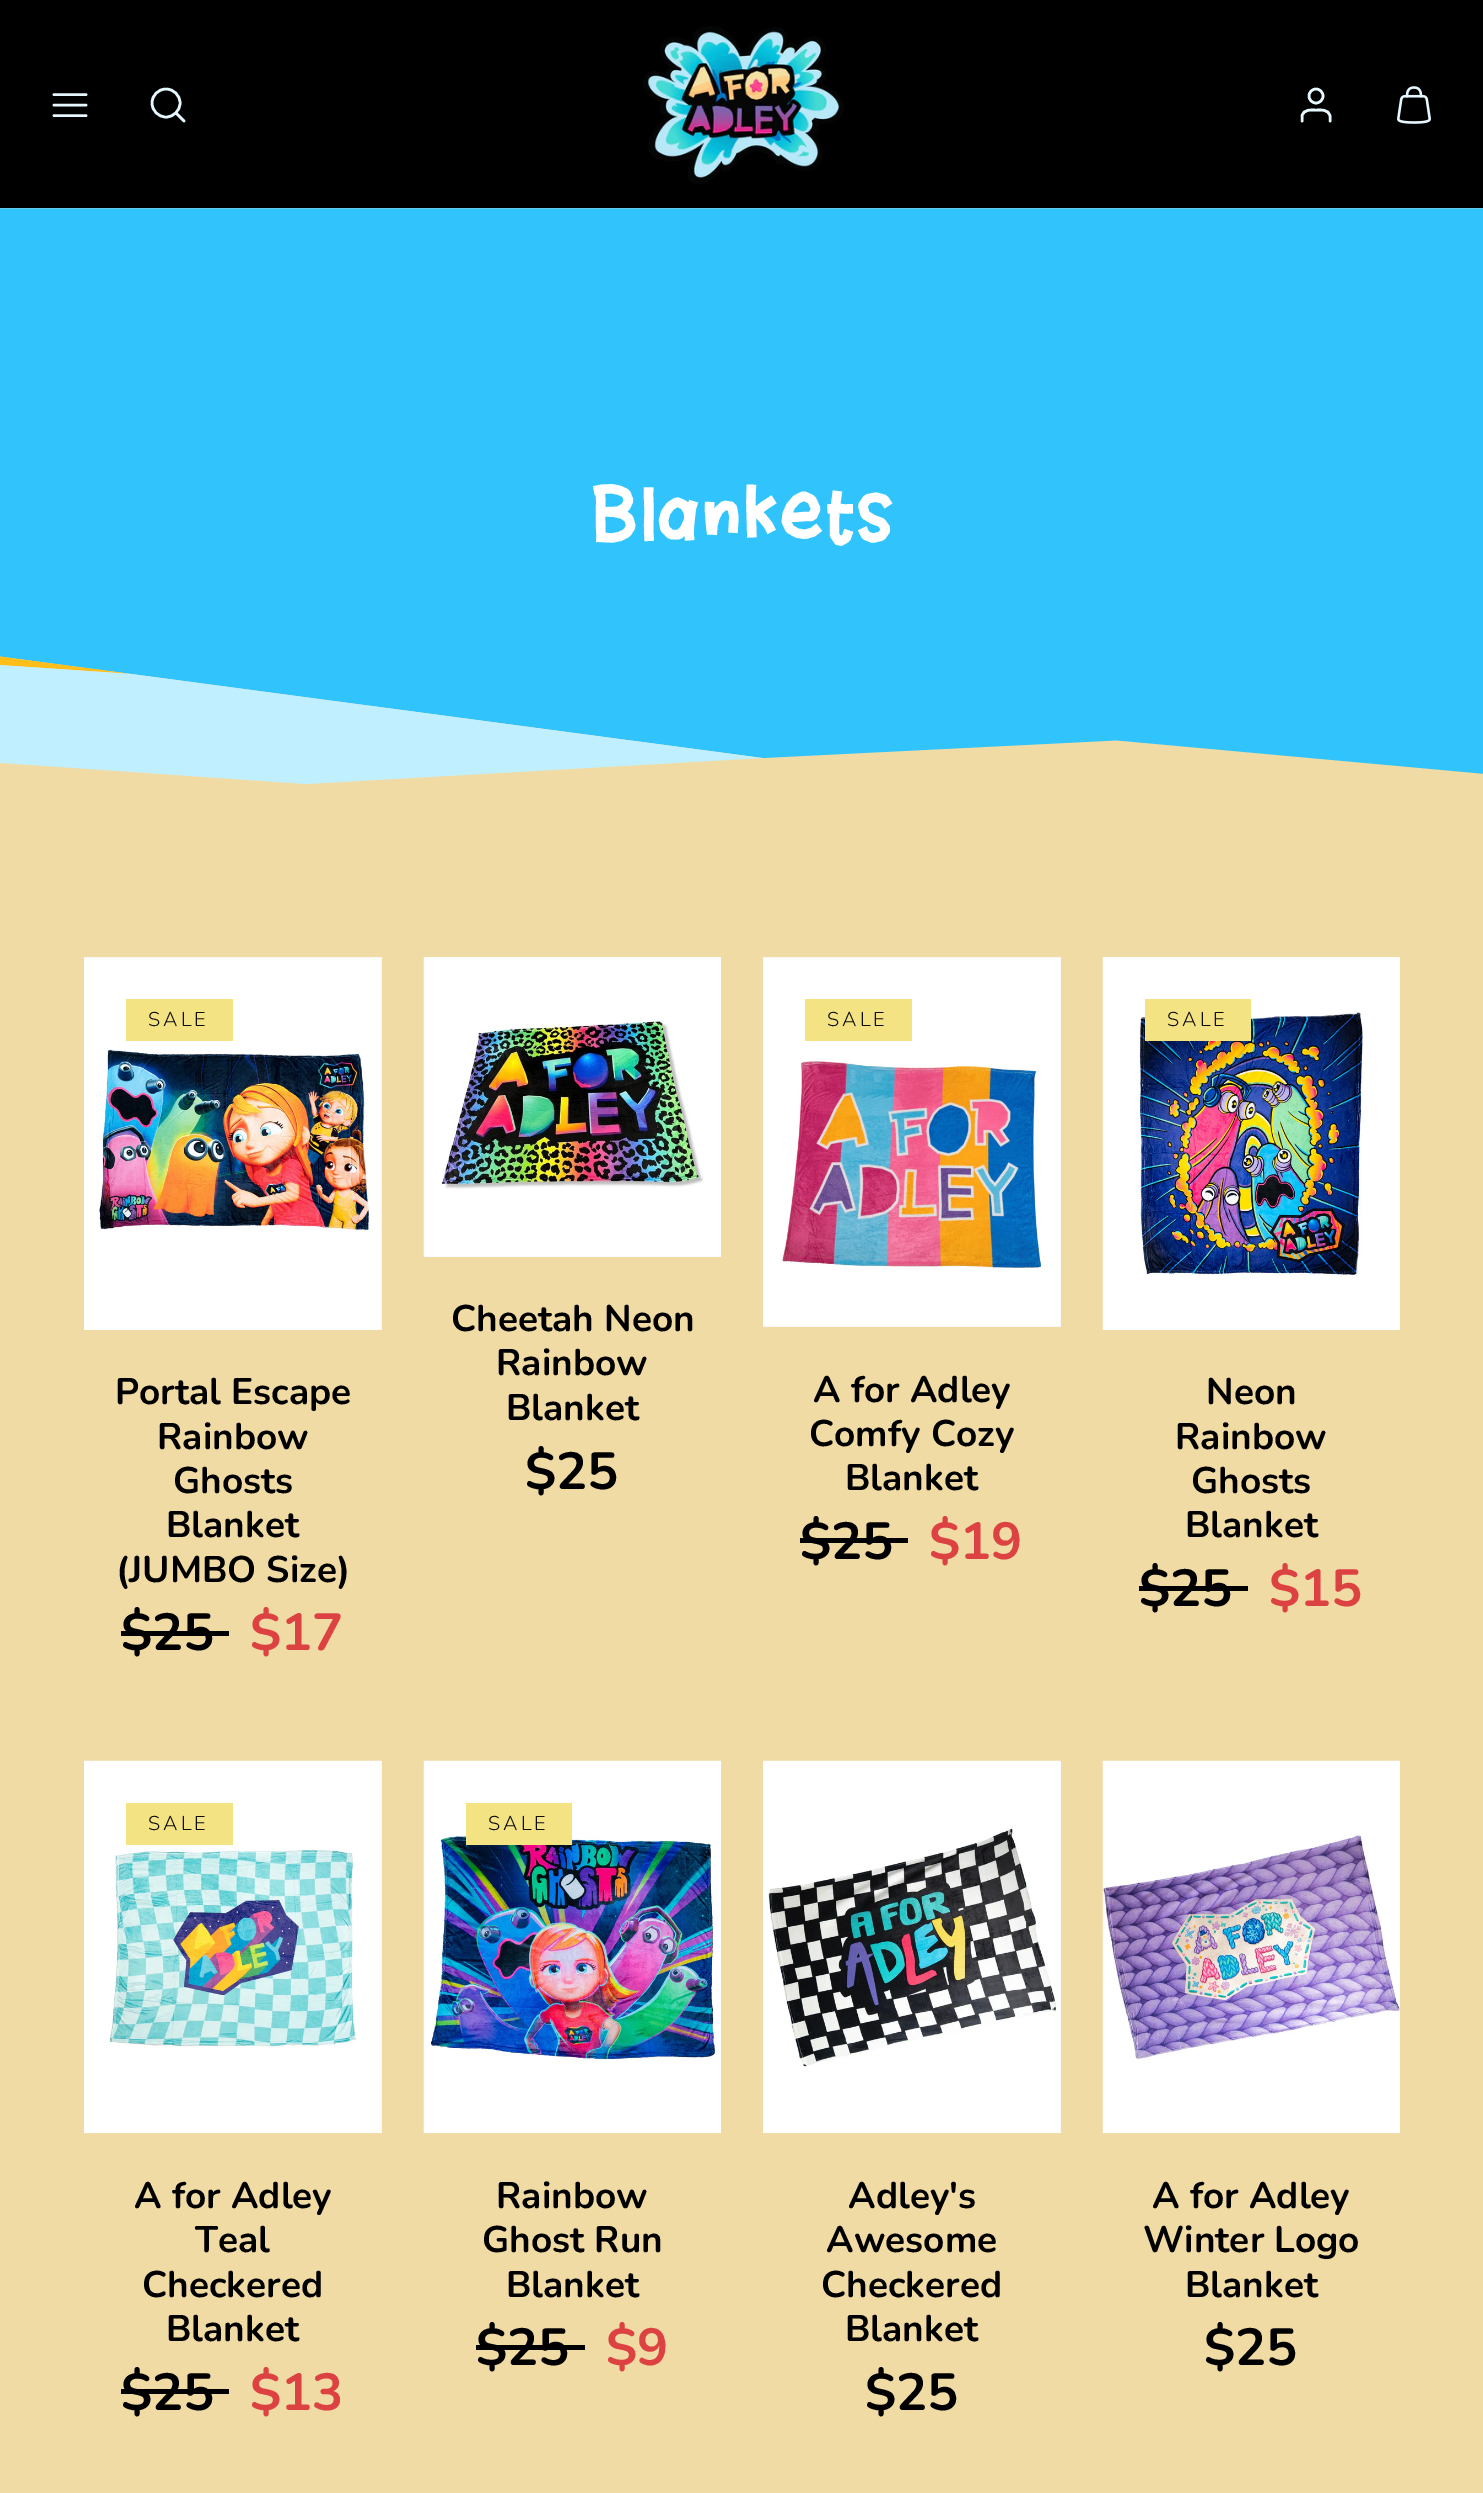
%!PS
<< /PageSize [1483 2493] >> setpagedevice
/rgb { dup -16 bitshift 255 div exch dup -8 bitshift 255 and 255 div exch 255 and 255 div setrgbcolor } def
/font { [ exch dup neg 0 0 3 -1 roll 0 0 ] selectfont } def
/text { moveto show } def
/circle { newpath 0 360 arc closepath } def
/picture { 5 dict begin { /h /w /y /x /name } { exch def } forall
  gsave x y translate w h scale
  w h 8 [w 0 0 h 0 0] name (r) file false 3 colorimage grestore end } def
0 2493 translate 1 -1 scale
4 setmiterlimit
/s1 { /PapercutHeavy-Black 74 font 16#FFFFFF rgb } def
/s2 { /Nunito-Bold 37 font 16#000000 rgb } def
/s3 { /Nunito-Bold 52 font 16#000000 rgb } def
/s4 { /Nunito-Bold 52 font 16#DD4242 rgb } def
16#F1DBA4 rgb
0 0 1483 2493 rectfill
16#000000 rgb
0 0 1483 208 rectfill
16#E6F8FF rgb
2.6 setlinewidth
1 setlinecap
1 setlinejoin
54 105 moveto 86 105 lineto 54 94.5 moveto 86 94.5 lineto 54 115.5 moveto 86 115.5 lineto stroke
0 setlinecap
0 setlinejoin
166 103 14 circle stroke
1 setlinecap
1 setlinejoin
184 121 moveto 176 113 lineto stroke
(pic1.raw) 643 26 201 158 picture
1330 121 moveto 1330 116 lineto 1328.5 109 1321 110 1316 110 curveto 1311 110 1303.5 109 1302 116 curveto 1302 121 lineto stroke
0 setlinecap
0 setlinejoin
1316 96 7 circle stroke
(pic2.raw) 1397 86 34 38 picture
(pic3.raw) 0 208 1483 576 picture
s1
(Blankets) 589 540 text
16#F8F8F8 rgb
84 957 298 373 rectfill
(pic4.raw) 84 958 297 372 picture
16#F4E383 rgb
126 999 107 42 rectfill
/Nunito-Light 20 font
16#0D0D0D rgb
148 1026 moveto 3 0 (SALE) ashow
s2
(Portal Escape) 115 1404 text
(Rainbow) 157 1449 text
(Ghosts) 173 1493 text
(Blanket) 166 1537 text
(\(JUMBO Size\)) 116 1582 text
s3
($25) 121 1650 text
121 1631 108 5 rectfill
s4
($17) 250 1650 text
16#F8F8F8 rgb
424 957 297 300 rectfill
(pic5.raw) 423 957 298 300 picture
s2
(Cheetah Neon) 451 1331 text
(Rainbow) 496 1375 text
(Blanket) 506 1420 text
s3
($25) 525 1489 text
16#F8F8F8 rgb
763 957 298 370 rectfill
(pic6.raw) 763 958 297 368 picture
16#F4E383 rgb
805 999 107 42 rectfill
/Nunito-Light 20 font
16#0D0D0D rgb
827 1026 moveto 3 0 (SALE) ashow
s2
(A for Adley) 813 1402 text
(Comfy Cozy) 809 1446 text
(Blanket) 845 1490 text
s3
($25) 800 1559 text
800 1538 108 5 rectfill
s4
($19) 929 1559 text
16#F8F8F8 rgb
1103 957 297 1 rectfill
(pic7.raw) 1102 957 298 373 picture
16#F4E383 rgb
1145 999 106 42 rectfill
/Nunito-Light 20 font
16#0D0D0D rgb
1167 1026 moveto 3 0 (SALE) ashow
s2
(Neon) 1206 1404 text
(Rainbow) 1175 1449 text
(Ghosts) 1191 1493 text
(Blanket) 1185 1537 text
s3
($25) 1139 1606 text
1139 1586 109 5 rectfill
s4
($15) 1269 1606 text
16#F8F8F8 rgb
381 1761 1 372 rectfill
(pic8.raw) 84 1760 298 374 picture
16#F4E383 rgb
126 1803 107 42 rectfill
/Nunito-Light 20 font
16#0D0D0D rgb
148 1830 moveto 3 0 (SALE) ashow
s2
(A for Adley) 134 2208 text
(Teal) 195 2252 text
(Checkered) 142 2297 text
(Blanket) 166 2341 text
s3
($25) 121 2410 text
121 2389 108 5 rectfill
s4
($13) 250 2410 text
(pic9.raw) 423 1760 298 374 picture
16#F4E383 rgb
466 1803 106 42 rectfill
/Nunito-Light 20 font
16#0D0D0D rgb
488 1830 moveto 3 0 (SALE) ashow
s2
(Rainbow) 496 2208 text
(Ghost Run) 482 2252 text
(Blanket) 506 2297 text
s3
($25) 476 2365 text
476 2345 109 5 rectfill
s4
($9) 606 2365 text
16#F8F8F8 rgb
1060 1761 1 372 rectfill
(pic10.raw) 763 1760 298 374 picture
s2
(Adley's) 848 2208 text
(Awesome) 826 2252 text
(Checkered) 821 2297 text
(Blanket) 845 2341 text
s3
($25) 865 2410 text
(pic11.raw) 1102 1760 298 374 picture
s2
(A for Adley) 1152 2208 text
(Winter Logo) 1143 2252 text
(Blanket) 1185 2297 text
s3
($25) 1204 2365 text
showpage
